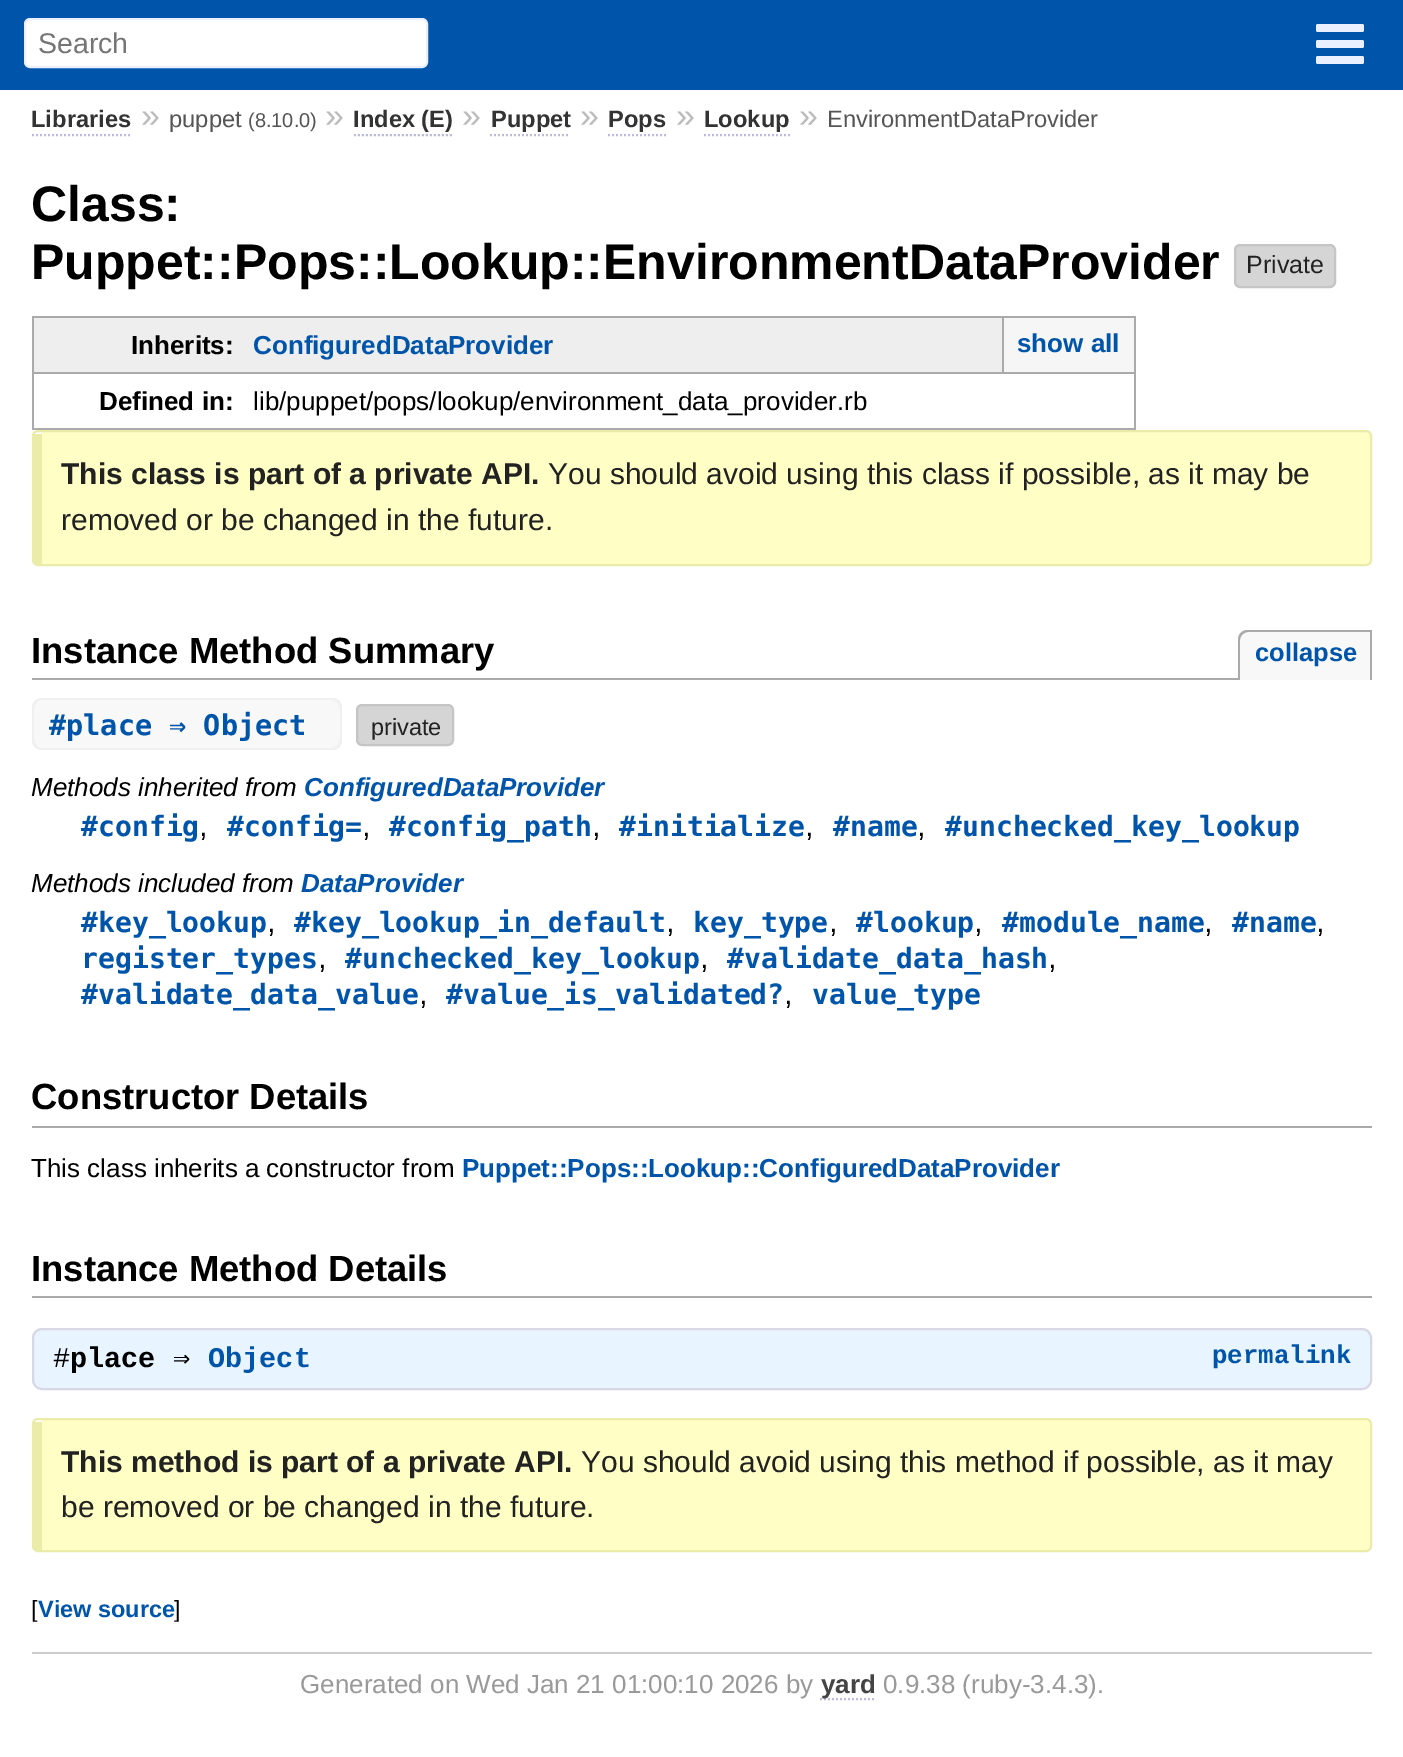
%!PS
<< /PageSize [1403 1757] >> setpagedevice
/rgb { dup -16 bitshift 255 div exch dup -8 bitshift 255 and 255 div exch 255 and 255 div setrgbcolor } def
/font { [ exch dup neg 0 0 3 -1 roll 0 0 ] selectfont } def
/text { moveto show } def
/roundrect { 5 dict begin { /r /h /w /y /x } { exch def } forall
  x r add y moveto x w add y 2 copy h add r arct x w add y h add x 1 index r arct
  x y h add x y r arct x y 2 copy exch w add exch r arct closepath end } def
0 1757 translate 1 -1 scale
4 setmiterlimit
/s1 { /LiberationSans-Regular 28.5 font 16#757575 rgb } def
/s2 { /LiberationSans-Bold 23.7 font 16#333333 rgb } def
/s3 { /LiberationSans-Regular 34 font 16#BBBBBB rgb } def
/s4 { /LiberationSans-Regular 23.7 font 16#555555 rgb } def
/s5 { /LiberationSans-Regular 20 font 16#555555 rgb } def
/s6 { /LiberationSans-Bold 50 font 16#000000 rgb } def
/s7 { /LiberationSans-Regular 25 font 16#222222 rgb } def
/s8 { /LiberationSans-Bold 26 font 16#000000 rgb } def
/s9 { /LiberationSans-Bold 26 font 16#0055AA rgb } def
/s10 { /LiberationSans-Regular 26 font 16#000000 rgb } def
/s11 { /LiberationSans-Bold 30 font 16#222222 rgb } def
/s12 { /LiberationSans-Regular 30 font 16#222222 rgb } def
/s13 { /LiberationSans-Bold 36.4 font 16#000000 rgb } def
/s14 { /LiberationSans-Bold 25.5 font 16#0055AA rgb } def
/s15 { /DejaVuSansMono-Bold 28.5 font 16#0055AA rgb } def
/s16 { /LiberationSans-Regular 23.5 font 16#222222 rgb } def
/s17 { /LiberationSans-Italic 26 font 16#000000 rgb } def
/s18 { /LiberationSans-BoldItalic 26 font 16#0055AA rgb } def
/s19 { /DejaVuSansMono-Bold 28.1 font 16#0055AA rgb } def
/s20 { /LiberationSans-Regular 31 font 16#000000 rgb } def
/s21 { /LiberationMono-Regular 28.5 font 16#000000 rgb } def
/s22 { /LiberationMono-Bold 28.5 font 16#000000 rgb } def
/s23 { /DejaVuSansMono-Regular 28.5 font 16#000000 rgb } def
/s24 { /LiberationMono-Bold 28.5 font 16#0055AA rgb } def
/s25 { /LiberationMono-Bold 25.75 font 16#0055AA rgb } def
/s26 { /LiberationSans-Regular 23.5 font 16#000000 rgb } def
/s27 { /LiberationSans-Bold 23.5 font 16#0055AA rgb } def
/s28 { /LiberationSans-Regular 26 font 16#999999 rgb } def
/s29 { /LiberationSans-Bold 26 font 16#444444 rgb } def
16#FFFFFF rgb
0 0 1403 1757 rectfill
16#0055AA rgb
0 0 1403 90 rectfill
16#FFFFFF rgb
25 19 402 48 5 roundrect gsave fill grestore
16#EAF0FF rgb
2 setlinewidth
stroke
s1
(Search) 38 53 text
16#EAF0FF rgb
1316 24 48 8 2 roundrect fill
1316 40 48 8 2 roundrect fill
1316 56 48 8 2 roundrect fill
s2
(Libraries) 31 127 text
16#BBBBDD rgb
[2 2] 0 setdash
32 135 moveto 132 135 lineto stroke
s3
(») 141 127 text
s4
(puppet) 169 127 text
s5
(\(8.10.0\)) 248 127 text
s3
(») 325 127 text
s2
(Index \(E\)) 353 127 text
16#BBBBDD rgb
354 135 moveto 452 135 lineto stroke
s3
(») 462 127 text
s2
(Puppet) 491 127 text
16#BBBBDD rgb
490 135 moveto 570 135 lineto stroke
s3
(») 580 127 text
s2
(Pops) 608 127 text
16#BBBBDD rgb
608 135 moveto 666 135 lineto stroke
s3
(») 676 127 text
s2
(Lookup) 704 127 text
16#BBBBDD rgb
704 135 moveto 790 135 lineto stroke
s3
(») 799 127 text
s4
(EnvironmentDataProvider) 827 127 text
s6
(Class:) 31 221 text
(Puppet::Pops::Lookup::EnvironmentDataProvider) 31 279 text
16#D5D5D5 rgb
1235 245 100 42 5 roundrect gsave fill grestore
16#C5C5C5 rgb
[] 0 setdash
stroke
s7
(Private) 1246 273 text
16#EEEEEE rgb
34 318 968 54 rectfill
16#AAAAAA rgb
32 316 1104 2 rectfill
32 316 2 56 rectfill
s8
(Inherits:) 131 354 text
16#AAAAAA rgb
32 372 1104 2 rectfill
1134 316 2 114 rectfill
s9
(ConfiguredDataProvider) 253 354 text
16#F6F6F6 rgb
1004 318 130 54 rectfill
16#AAAAAA rgb
1002 318 2 54 rectfill
s9
(show all) 1017 352 text
16#AAAAAA rgb
32 428 222 2 rectfill
32 372 2 58 rectfill
s8
(Defined in:) 99 410 text
16#AAAAAA rgb
254 428 882 2 rectfill
s10
(lib/puppet/pops/lookup/environment_data_provider.rb) 253 410 text
16#FFFFC5 rgb
42 432 moveto 1366 432 lineto 1368 432 1370 434 1370 436 curveto 1370 560 lineto 1370 562 1368 564 1366 564 curveto 42 564 lineto closepath fill
16#ECECAA rgb
33 431 1338 134 5 roundrect stroke
34 434 8 130 rectfill
s11
(This class is part of a private API.) 61 484 text
s12
(You should avoid using this class if possible, as it may be) 548 484 text
(removed or be changed in the future.) 61 530 text
16#AAAAAA rgb
32 678 1206 2 rectfill
s13
(Instance Method Summary) 31 663 text
16#F8F8F8 rgb
1248 630 moveto 1372 630 lineto 1372 680 lineto 1238 680 lineto 1238 640 lineto 1238 634.5 1242.5 630 1248 630 curveto closepath fill
16#AAAAAA rgb
1248 630 moveto 1372 630 lineto 1372 680 lineto 1238 680 lineto 1238 640 lineto 1238 634 1242 630 1248 630 curveto closepath 1248 632 moveto 1370 632 lineto 1370 680 lineto 1240 680 lineto 1240 640 lineto 1240 636 1244 632 1248 632 curveto closepath eofill
s14
(collapse) 1255 661 text
16#F8F8F8 rgb
42 698 moveto 66 698 lineto 66 750 lineto 42 750 lineto 36.5 750 32 745.5 32 740 curveto 32 708 lineto 32 702.5 36.5 698 42 698 curveto closepath fill
16#F0F0F0 rgb
42 698 moveto 66 698 lineto 66 750 lineto 42 750 lineto 36 750 32 746 32 740 curveto 32 708 lineto 32 702 36 698 42 698 curveto closepath 42 700 moveto 66 700 lineto 66 748 lineto 42 748 lineto 38 748 34 744 34 740 curveto 34 708 lineto 34 704 38 700 42 700 curveto closepath eofill
16#F8F8F8 rgb
66 700 86 48 rectfill
152 698 moveto 332 698 lineto 337.5 698 342 702.5 342 708 curveto 342 740 lineto 342 745.5 337.5 750 332 750 curveto 152 750 lineto closepath fill
16#F0F0F0 rgb
152 698 moveto 332 698 lineto 338 698 342 702 342 708 curveto 342 740 lineto 342 746 338 750 332 750 curveto 152 750 lineto closepath 152 700 moveto 332 700 lineto 336 700 340 704 340 708 curveto 340 740 lineto 340 744 336 748 332 748 curveto 152 748 lineto closepath eofill
s15
(#place ⇒ Object) 49 735 text
16#F0F0F0 rgb
66 698 86 2 rectfill
66 748 86 2 rectfill
16#D5D5D5 rgb
357 705 96 40 5 roundrect gsave fill grestore
16#C5C5C5 rgb
stroke
s16
(private) 371 735 text
s17
(Methods inherited from) 31 796 text
s18
(ConfiguredDataProvider) 304 796 text
s19
(#config) 81 836 text
s20
(,) 199 836 text
s19
(#config=) 227 836 text
s20
(,) 362 836 text
s19
(#config_path) 389 836 text
s20
(,) 592 836 text
s19
(#initialize) 619 836 text
s20
(,) 805 836 text
s19
(#name) 833 836 text
s20
(,) 917 836 text
s19
(#unchecked_key_lookup) 945 836 text
s17
(Methods included from) 31 892 text
s18
(DataProvider) 301 892 text
s19
(#key_lookup) 81 932 text
s20
(,) 267 932 text
s19
(#key_lookup_in_default) 294 932 text
s20
(,) 666 932 text
s19
(key_type) 693 932 text
s20
(,) 829 932 text
s19
(#lookup) 856 932 text
s20
(,) 974 932 text
s19
(#module_name) 1002 932 text
s20
(,) 1204 932 text
s19
(#name) 1232 932 text
s20
(,) 1316 932 text
s19
(register_types) 81 968 text
s20
(,) 318 968 text
s19
(#unchecked_key_lookup) 345 968 text
s20
(,) 700 968 text
s19
(#validate_data_hash) 727 968 text
s20
(,) 1048 968 text
s19
(#validate_data_value) 81 1004 text
s20
(,) 419 1004 text
s19
(#value_is_validated?) 446 1004 text
s20
(,) 784 1004 text
s19
(value_type) 812 1004 text
16#AAAAAA rgb
32 1126 1340 2 rectfill
s13
(Constructor Details) 31 1109 text
s10
(This class inherits a constructor from) 31 1177 text
s9
(Puppet::Pops::Lookup::ConfiguredDataProvider) 462 1177 text
16#AAAAAA rgb
32 1296 1340 2 rectfill
s13
(Instance Method Details) 31 1281 text
16#E8F4FF rgb
33 1329 1338 60 9 roundrect gsave fill grestore
16#D8D8E5 rgb
stroke
s21
(#) 53 1367 text
s22
(place) 70 1367 text
s23
(⇒) 173 1367 text
s24
(Object) 208 1367 text
s25
(permalink) 1212 1363 text
16#FFFFC5 rgb
42 1420 moveto 1366 1420 lineto 1368 1420 1370 1422 1370 1424 curveto 1370 1546 lineto 1370 1548 1368 1550 1366 1550 curveto 42 1550 lineto closepath fill
16#ECECAA rgb
33 1419 1338 132 5 roundrect stroke
34 1422 8 128 rectfill
s11
(This method is part of a private API.) 61 1472 text
s12
(You should avoid using this method if possible, as it may) 581 1472 text
(be removed or be changed in the future.) 61 1517 text
s26
([) 31 1617 text
s27
(View source) 38 1617 text
s26
(]) 174 1617 text
16#CCCCCC rgb
32 1652 1340 2 rectfill
s28
(Generated on Wed Jan 21 01:00:10 2026 by) 300 1693 text
16#BBBBDD rgb
[2 2] 0 setdash
820 1699 moveto 876 1699 lineto stroke
s29
(yard) 821 1693 text
s28
(0.9.38 \(ruby-3.4.3\).) 883 1693 text
showpage
